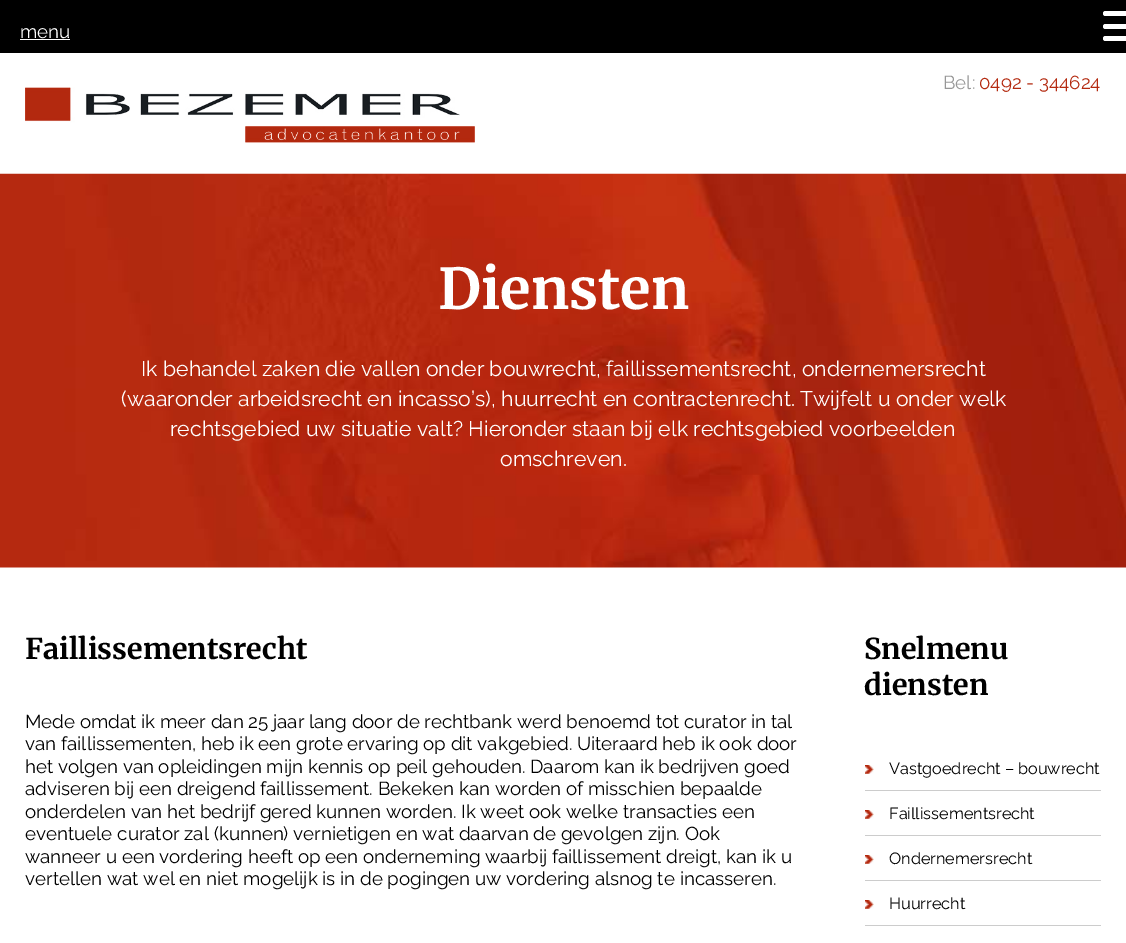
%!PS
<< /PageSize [1126 943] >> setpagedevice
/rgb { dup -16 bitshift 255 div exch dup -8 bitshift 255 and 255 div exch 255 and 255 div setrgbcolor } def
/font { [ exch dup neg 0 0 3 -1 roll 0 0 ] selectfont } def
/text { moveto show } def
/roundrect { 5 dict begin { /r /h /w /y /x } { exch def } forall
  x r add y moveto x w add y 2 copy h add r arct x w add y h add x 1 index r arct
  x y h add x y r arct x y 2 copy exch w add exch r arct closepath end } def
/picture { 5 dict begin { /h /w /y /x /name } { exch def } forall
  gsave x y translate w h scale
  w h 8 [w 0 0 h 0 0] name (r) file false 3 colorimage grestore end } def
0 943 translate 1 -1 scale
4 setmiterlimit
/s1 { /Raleway-Regular 18.75 font 16#FFFFFF rgb } def
/s2 { /Raleway-Regular 18.75 font 16#979797 rgb } def
/s3 { /Raleway-Regular 18.75 font 16#B42A10 rgb } def
/s4 { /Merriweather-Bold 56.25 font 16#FFFFFF rgb } def
/s5 { /Raleway-Regular 21.25 font 16#FFFFFF rgb } def
/s6 { /Merriweather-Bold 28.75 font 16#000000 rgb } def
/s7 { /Raleway-Regular 18.75 font 16#000000 rgb } def
/s8 { /Raleway-Regular 16.25 font 16#000000 rgb } def
16#FFFFFF rgb
0 0 1126 943 rectfill
16#000000 rgb
0 0 1126 53 rectfill
s1
(menu) 20 38 text
20 39 50 1 rectfill
1103 11 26 5 2.5 roundrect fill
1103 24 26 5 2.5 roundrect fill
1103 36 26 5 2.5 roundrect fill
s2
(Bel:) 943 89 text
s3
(0492 - 344624) 979 89 text
(pic1.raw) 25 87 450 56 picture
(pic2.raw) 0 173 1126 395 picture
s4
(Diensten) 438 309 text
s5
(Ik behandel zaken die vallen onder bouwrecht, faillissementsrecht, ondernemersrecht) 141 376 text
(\(waaronder arbeidsrecht en incasso’s\), huurrecht en contractenrecht. Twijfelt u onder welk) 121 406 text
(rechtsgebied uw situatie valt? Hieronder staan bij elk rechtsgebied voorbeelden) 170 436 text
(omschreven.) 500 466 text
s6
(Faillissementsrecht) 25 659 text
s7
(Mede omdat ik meer dan 25 jaar lang door de rechtbank werd benoemd tot curator in tal) 25 728 text
(van faillissementen, heb ik een grote ervaring op dit vakgebied. Uiteraard heb ik ook door) 25 750 text
(het volgen van opleidingen mijn kennis op peil gehouden. Daarom kan ik bedrijven goed) 25 773 text
(adviseren bij een dreigend faillissement. Bekeken kan worden of misschien bepaalde) 25 795 text
(onderdelen van het bedrijf gered kunnen worden. Ik weet ook welke transacties een) 25 818 text
(eventuele curator zal \(kunnen\) vernietigen en wat daarvan de gevolgen zijn. Ook) 25 840 text
(wanneer u een vordering heeft op een onderneming waarbij faillissement dreigt, kan ik u) 25 863 text
(vertellen wat wel en niet mogelijk is in de pogingen uw vordering alsnog te incasseren.) 25 885 text
s6
(Snelmenu) 864 659 text
(diensten) 864 695 text
(pic3.raw) 865 765 9 9 picture
16#CCCCCC rgb
865 790 236 1 rectfill
s8
(Vastgoedrecht – bouwrecht) 889 774 text
(pic3.raw) 865 810 9 9 picture
16#CCCCCC rgb
865 835 236 1 rectfill
s8
(Faillissementsrecht) 889 819 text
(pic3.raw) 865 855 9 9 picture
16#CCCCCC rgb
865 880 236 1 rectfill
s8
(Ondernemersrecht) 889 864 text
(pic3.raw) 865 900 9 9 picture
16#CCCCCC rgb
865 925 236 1 rectfill
s8
(Huurrecht) 889 909 text
showpage
